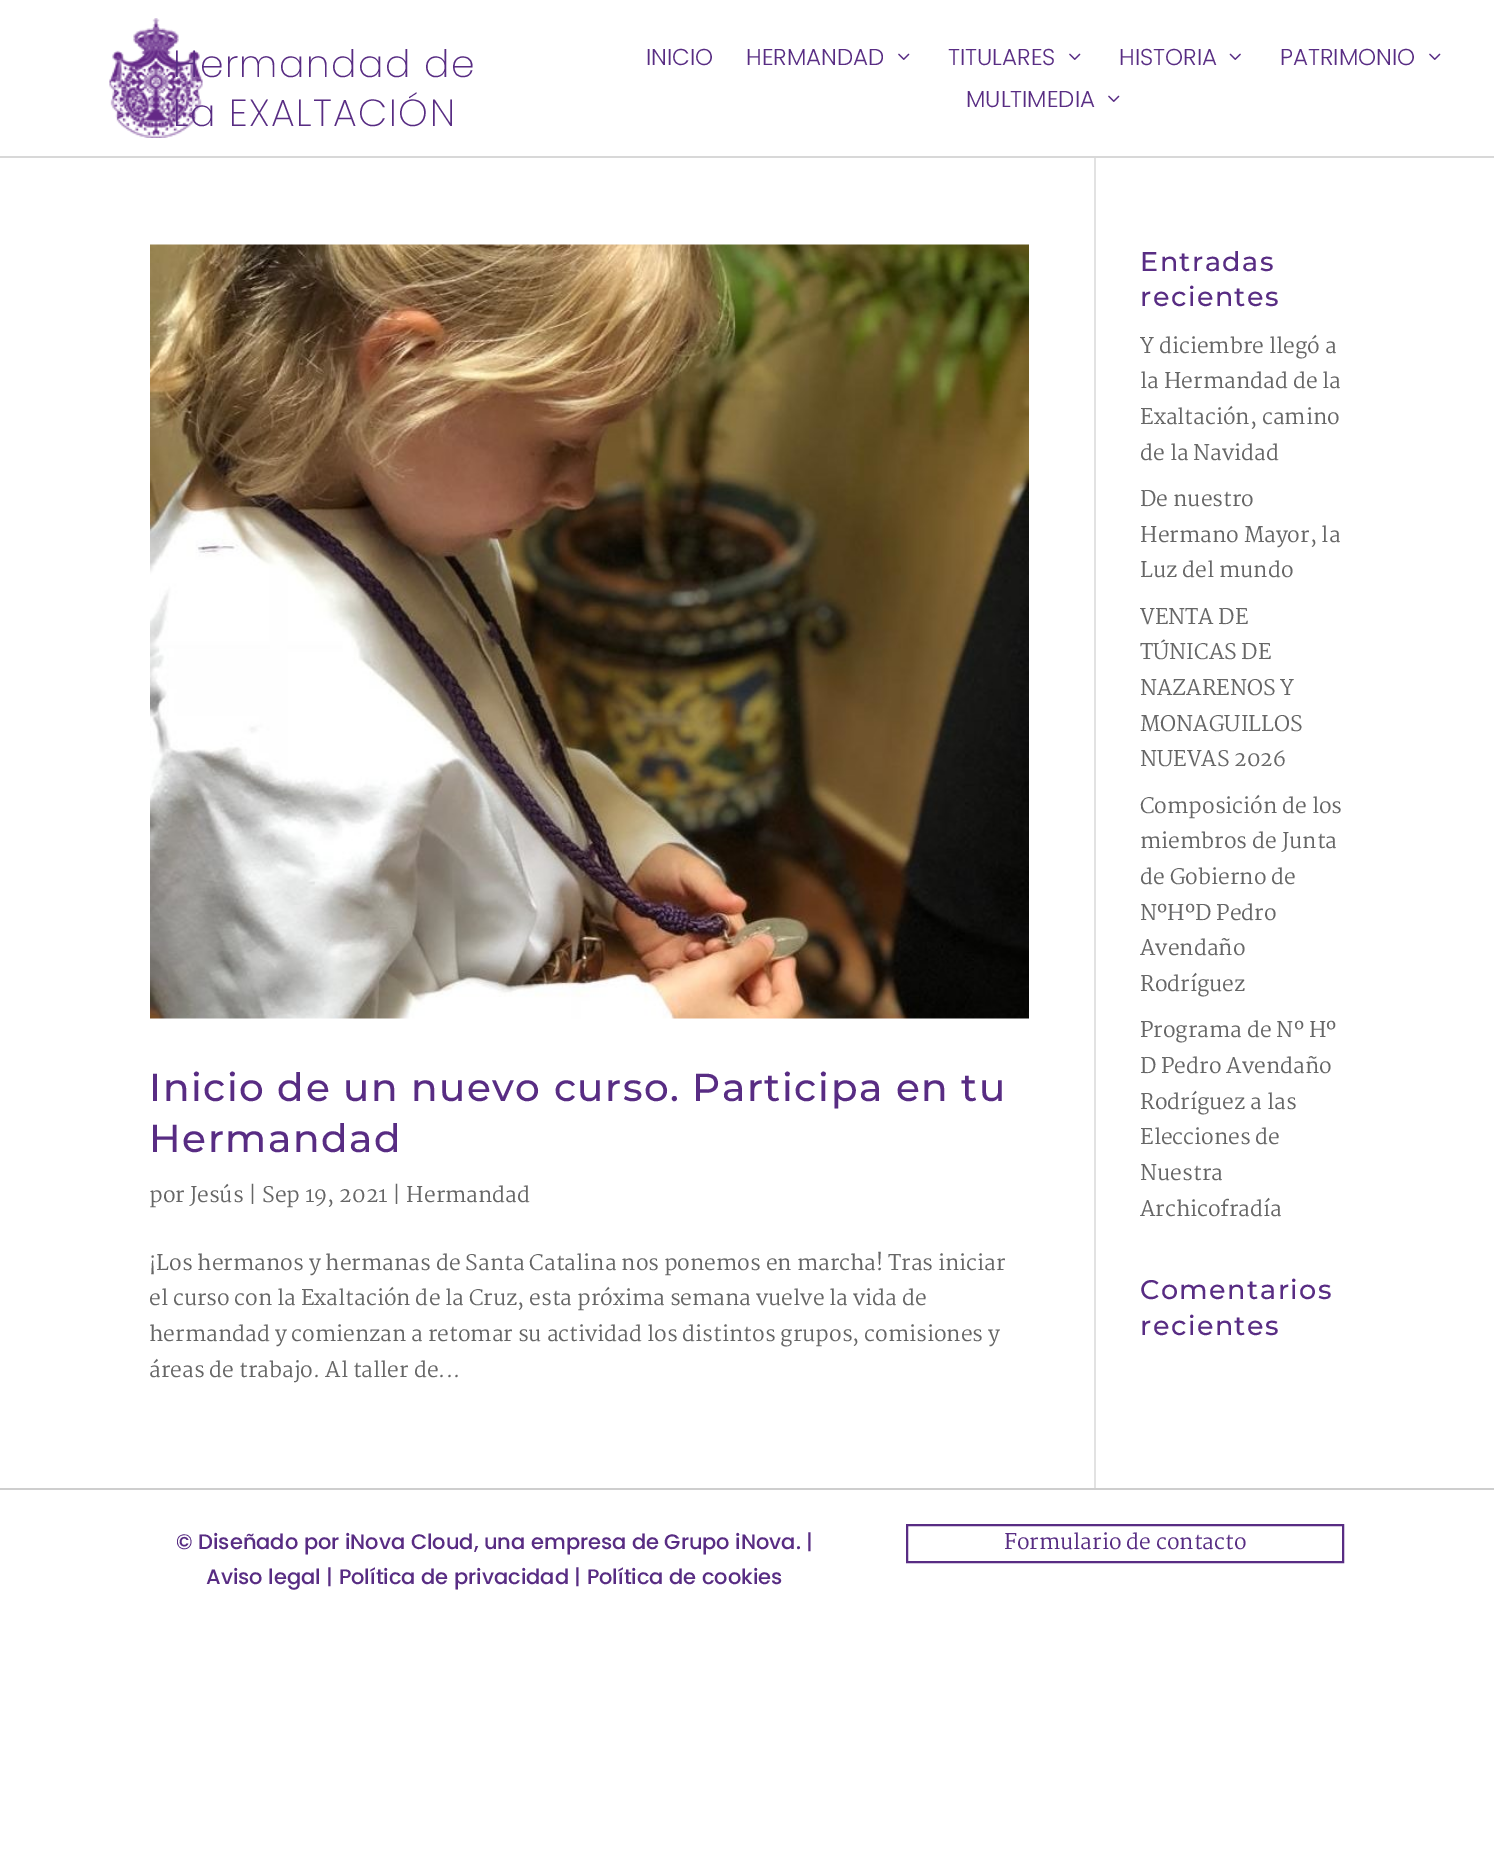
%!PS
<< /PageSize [1494 1863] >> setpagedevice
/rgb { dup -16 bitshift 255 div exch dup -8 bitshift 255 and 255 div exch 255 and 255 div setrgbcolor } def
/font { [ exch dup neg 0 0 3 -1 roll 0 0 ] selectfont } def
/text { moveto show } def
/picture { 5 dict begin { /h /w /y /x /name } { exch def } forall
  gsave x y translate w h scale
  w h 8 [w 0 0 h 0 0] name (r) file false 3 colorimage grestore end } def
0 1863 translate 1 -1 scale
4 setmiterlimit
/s1 { /Poppins-Light 23 font 16#582C83 rgb } def
/s2 { /Martel-Regular 21 font 16#666666 rgb } def
/s3 { /Poppins-Medium 21 font 16#582C83 rgb } def
/s4 { /Martel-Regular 21 font 16#582C83 rgb } def
16#FFFFFF rgb
0 0 1494 1863 rectfill
16#D8D8D8 rgb
0 156 1494 2 rectfill
(pic1.raw) 109 18 94 120 picture
/Poppins-ExtraLight 37.75 font
16#582C83 rgb
173 77 moveto 1.5 0 (Hermandad de) ashow
173 126 moveto 1.5 0 (La EXALTACIÓN) ashow
s1
(INICIO) 646 65 text
(HERMANDAD) 746 65 text
(pic2.raw) 898 53 12 7 picture
(TITULARES) 948 65 text
(pic2.raw) 1069 53 12 7 picture
(HISTORIA) 1119 65 text
(pic3.raw) 1229 53 12 7 picture
(PATRIMONIO) 1280 65 text
(pic2.raw) 1429 53 12 7 picture
(MULTIMEDIA) 966 107 text
(pic2.raw) 1108 95 12 7 picture
16#E2E2E2 rgb
1094 158 2 1330 rectfill
(pic4.raw) 150 244 879 775 picture
/Montserrat-Thin 39 font
16#582C83 rgb
149 1101 moveto 1.5 0 (Inicio de un nuevo curso. Participa en tu) ashow
149 1152 moveto 1.5 0 (Hermandad) ashow
s2
(por Jesús | Sep 19, 2021 | Hermandad) 149 1202 text
(¡Los hermanos y hermanas de Santa Catalina nos ponemos en marcha! Tras iniciar) 149 1270 text
(el curso con la Exaltación de la Cruz, esta próxima semana vuelve la vida de) 149 1305 text
(hermandad y comienzan a retomar su actividad los distintos grupos, comisiones y) 149 1341 text
(áreas de trabajo. Al taller de...) 149 1377 text
/Montserrat-Thin 27 font
16#582C83 rgb
1140 271 moveto 1.5 0 (Entradas) ashow
1140 306 moveto 1.5 0 (recientes) ashow
s2
(Y diciembre llegó a) 1140 353 text
(la Hermandad de la) 1140 388 text
(Exaltación, camino) 1140 424 text
(de la Navidad) 1140 460 text
(De nuestro) 1140 506 text
(Hermano Mayor, la) 1140 542 text
(Luz del mundo) 1140 577 text
(VENTA DE) 1140 624 text
(TÚNICAS DE) 1140 659 text
(NAZARENOS Y) 1140 695 text
(MONAGUILLOS) 1140 731 text
(NUEVAS 2026) 1140 766 text
(Composición de los) 1140 813 text
(miembros de Junta) 1140 848 text
(de Gobierno de) 1140 884 text
(NºHºD Pedro) 1140 920 text
(Avendaño) 1140 955 text
(Rodríguez) 1140 991 text
(Programa de Nº Hº) 1140 1037 text
(D Pedro Avendaño) 1140 1073 text
(Rodríguez a las) 1140 1109 text
(Elecciones de) 1140 1144 text
(Nuestra) 1140 1180 text
(Archicofradía) 1140 1216 text
/Montserrat-Thin 27 font
16#582C83 rgb
1140 1299 moveto 1.5 0 (Comentarios) ashow
1140 1335 moveto 1.5 0 (recientes) ashow
16#CECECE rgb
0 1488 1494 2 rectfill
s3
(© Diseñado por iNova Cloud, una empresa de Grupo iNova. |) 176 1549 text
(Aviso legal | Política de privacidad | Política de cookies) 206 1584 text
2 setlinewidth
907 1525 436 37 rectstroke
s4
(Formulario de contacto) 1004 1549 text
showpage
